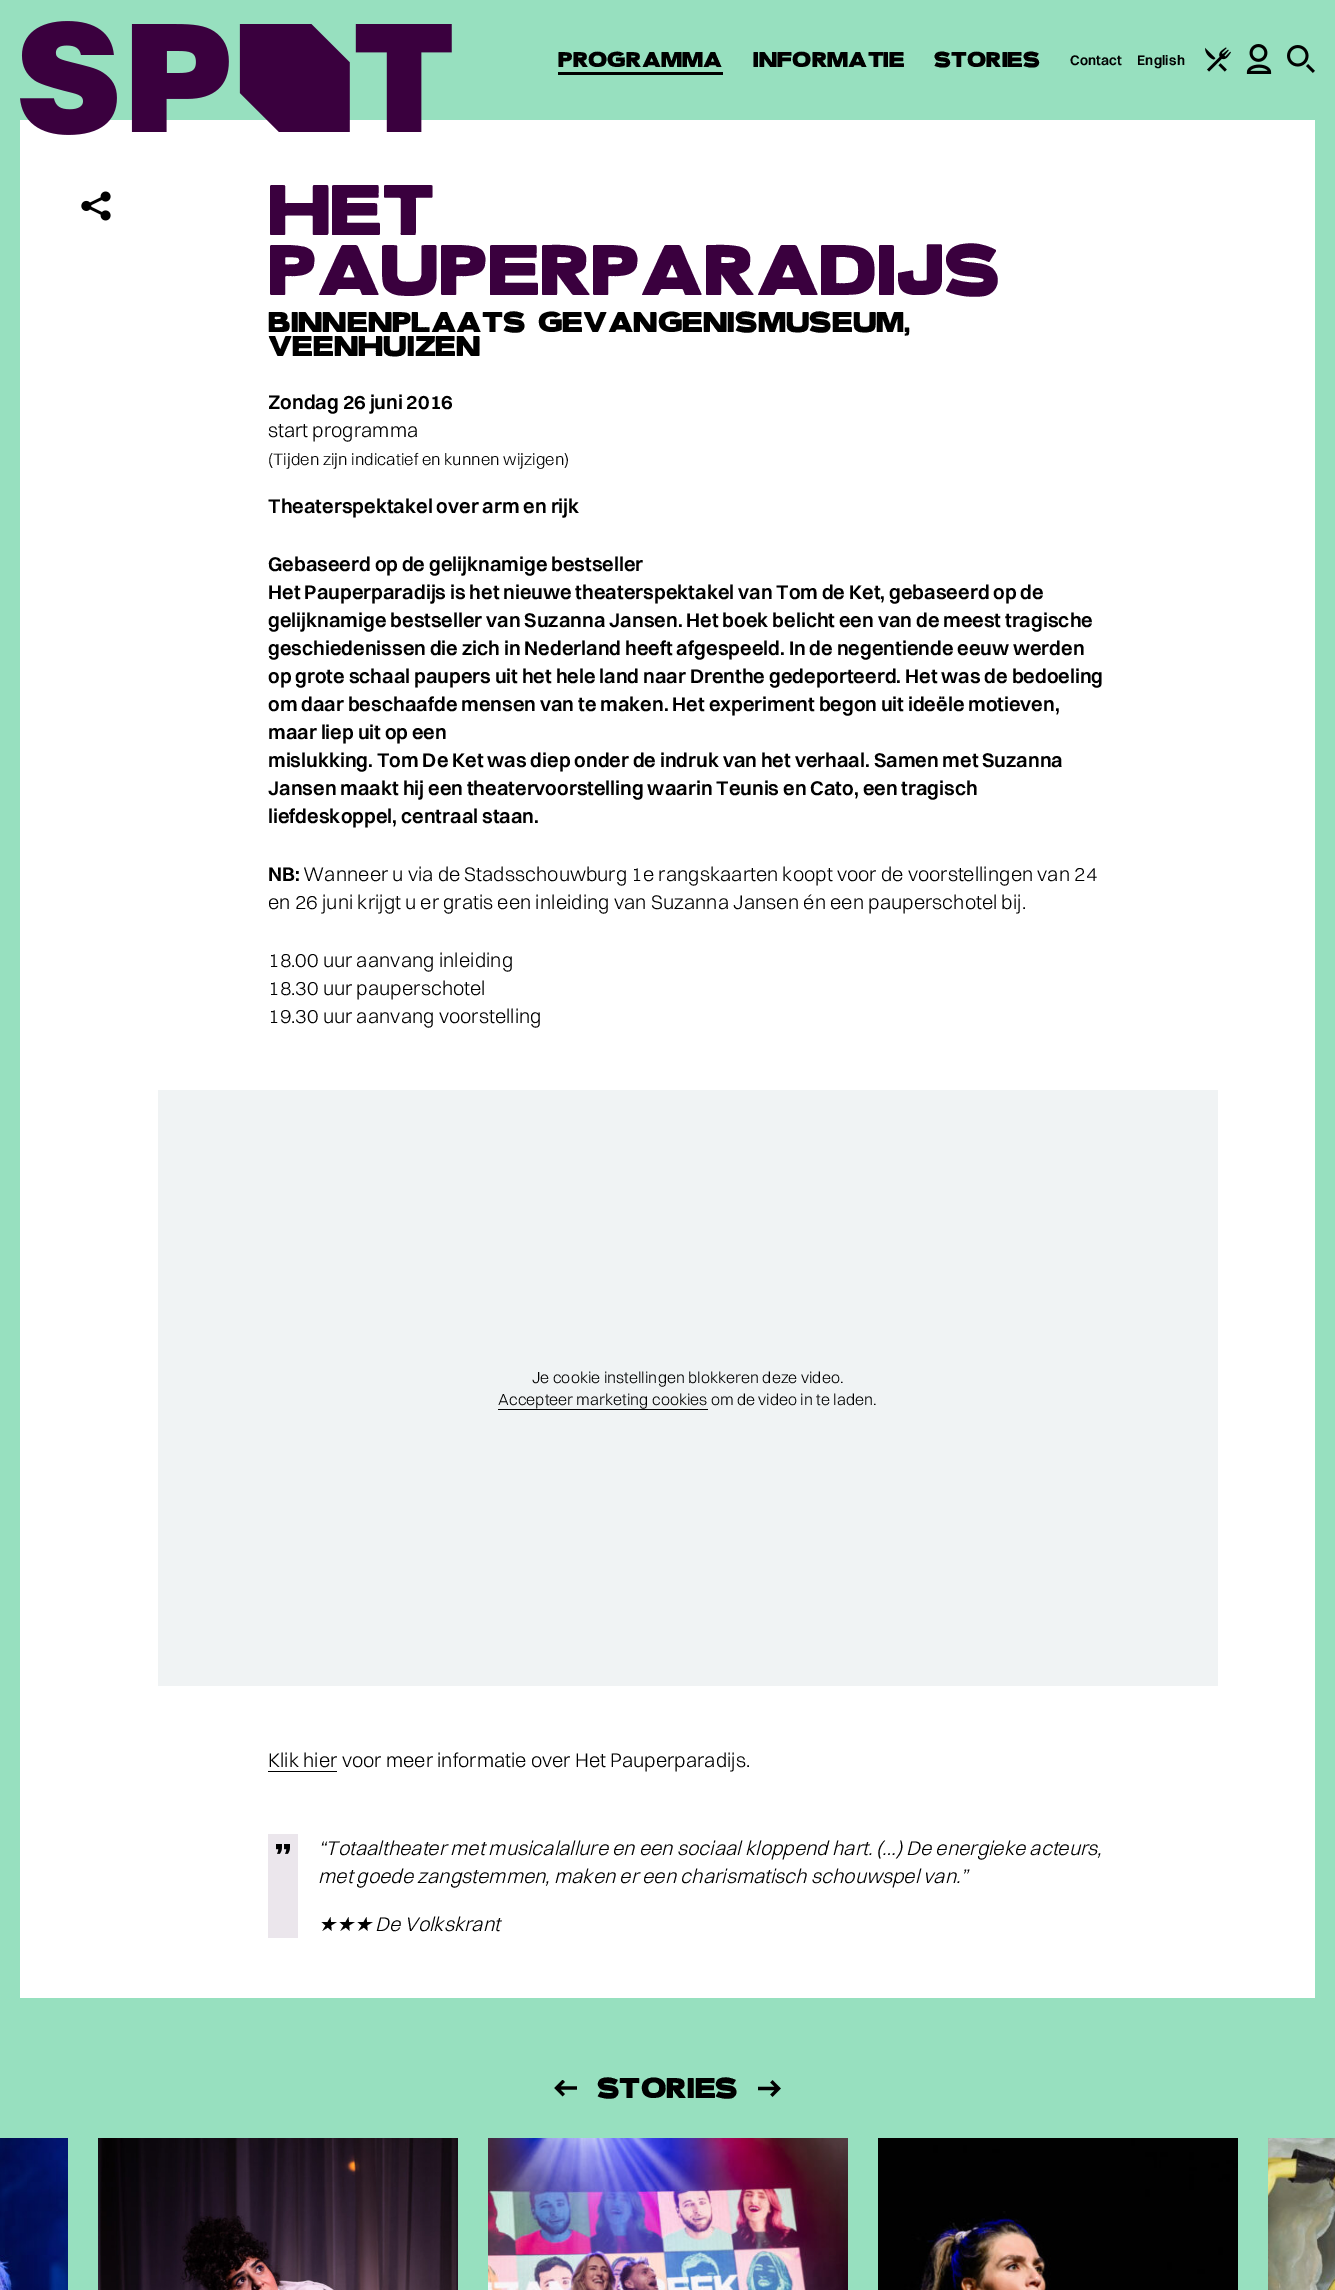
%!PS
<< /PageSize [1335 2290] >> setpagedevice
/rgb { dup -16 bitshift 255 div exch dup -8 bitshift 255 and 255 div exch 255 and 255 div setrgbcolor } def
/font { [ exch dup neg 0 0 3 -1 roll 0 0 ] selectfont } def
/text { moveto show } def
/picture { 5 dict begin { /h /w /y /x /name } { exch def } forall
  gsave x y translate w h scale
  w h 8 [w 0 0 h 0 0] name (r) file false 3 colorimage grestore end } def
0 2290 translate 1 -1 scale
4 setmiterlimit
/s1 { /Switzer-SemiBold 20 font 16#000000 rgb } def
/s2 { /Switzer-Light 20 font 16#000000 rgb } def
/s3 { /Switzer-Light 16.7 font 16#000000 rgb } def
/s4 { /Switzer-Light 16 font 16#000000 rgb } def
/s5 { /Switzer-LightItalic 20 font 16#000000 rgb } def
/s6 { /DejaVuSans-Italic 20 font 16#000000 rgb } def
16#97E0BF rgb
0 0 1335 2290 rectfill
16#FFFFFF rgb
20 120 1295 1878 rectfill
(pic1.raw) 20 21 432 114 picture
/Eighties-Regular 30 font
16#000000 rgb
558 67 moveto 0.1 0 (PROGRAMMA) ashow
558 72 165 3 rectfill
753 67 moveto 0.1 0 (INFORMATIE) ashow
934 67 moveto 0.1 0 (STORIES) ashow
/Switzer-SemiBold 14 font
1070 65 moveto 0.1 0 (Contact) ashow
1137 65 moveto 0.1 0 (English) ashow
(pic2.raw) 1205 47 26 25 picture
(pic3.raw) 1246 44 26 30 picture
(pic4.raw) 1287 45 28 28 picture
(pic5.raw) 81 191 30 30 picture
/Eighties-Regular 100 font
16#3A003E rgb
268 235 moveto 0.1 0 (HET) ashow
268 295 moveto 0.1 0 (PAUPERPARADIJS) ashow
/Eighties-Regular 40 font
16#000000 rgb
268 332 moveto 0.1 0 (BINNENPLAATS GEVANGENISMUSEUM,) ashow
268 356 moveto 0.1 0 (VEENHUIZEN) ashow
s1
(Zondag 26 juni 2016) 268 409 text
s2
(start programma) 268 437 text
s3
(\(Tijden zijn indicatief en kunnen wijzigen\)) 268 465 text
s1
(Theaterspektakel over arm en rijk) 268 513 text
(Gebaseerd op de gelijknamige bestseller) 268 571 text
(Het Pauperparadijs is het nieuwe theaterspektakel van Tom de Ket, gebaseerd op de) 268 599 text
(gelijknamige bestseller van Suzanna Jansen. Het boek belicht een van de meest tragische) 268 627 text
(geschiedenissen die zich in Nederland heeft afgespeeld. In de negentiende eeuw werden) 268 655 text
(op grote schaal paupers uit het hele land naar Drenthe gedeporteerd. Het was de bedoeling) 268 683 text
(om daar beschaafde mensen van te maken. Het experiment begon uit ideële motieven,) 268 711 text
(maar liep uit op een) 268 739 text
(mislukking. Tom De Ket was diep onder de indruk van het verhaal. Samen met Suzanna) 268 767 text
(Jansen maakt hij een theatervoorstelling waarin Teunis en Cato, een tragisch) 268 795 text
(liefdeskoppel, centraal staan.) 268 823 text
(NB:) 268 881 text
s2
(Wanneer u via de Stadsschouwburg 1e rangskaarten koopt voor de voorstellingen van 24) 303 881 text
(en 26 juni krijgt u er gratis een inleiding van Suzanna Jansen én een pauperschotel bij.) 268 909 text
(18.00 uur aanvang inleiding) 268 967 text
(18.30 uur pauperschotel) 268 995 text
(19.30 uur aanvang voorstelling) 268 1023 text
16#F0F3F4 rgb
158 1090 1060 596 rectfill
s4
(Je cookie instellingen blokkeren deze video.) 532 1383 text
(Accepteer marketing cookies om de video in te laden.) 498 1405 text
498 1409 210 1 rectfill
268 1771 69 1 rectfill
s2
(Klik hier voor meer informatie over Het Pauperparadijs.) 268 1767 text
16#EBE6EC rgb
268 1834 30 104 rectfill
(pic6.raw) 276 1844 14 10 picture
s5
(“Totaaltheater met musicalallure en een sociaal kloppend hart. \(…\) De energieke acteurs,) 318 1855 text
(met goede zangstemmen, maken er een charismatisch schouwspel van.”) 318 1883 text
s6
(★★★) 318 1931 text
s5
(De Volkskrant) 375 1931 text
(pic7.raw) 554 2080 23 17 picture
/Eighties-Regular 40 font
597 2098 moveto 0.1 0 (STORIES) ashow
(pic8.raw) 758 2080 23 17 picture
(pic9.raw) 0 2138 68 152 picture
(pic10.raw) 98 2138 360 152 picture
(pic11.raw) 488 2138 360 152 picture
(pic12.raw) 878 2138 360 152 picture
(pic13.raw) 1268 2138 67 152 picture
showpage
